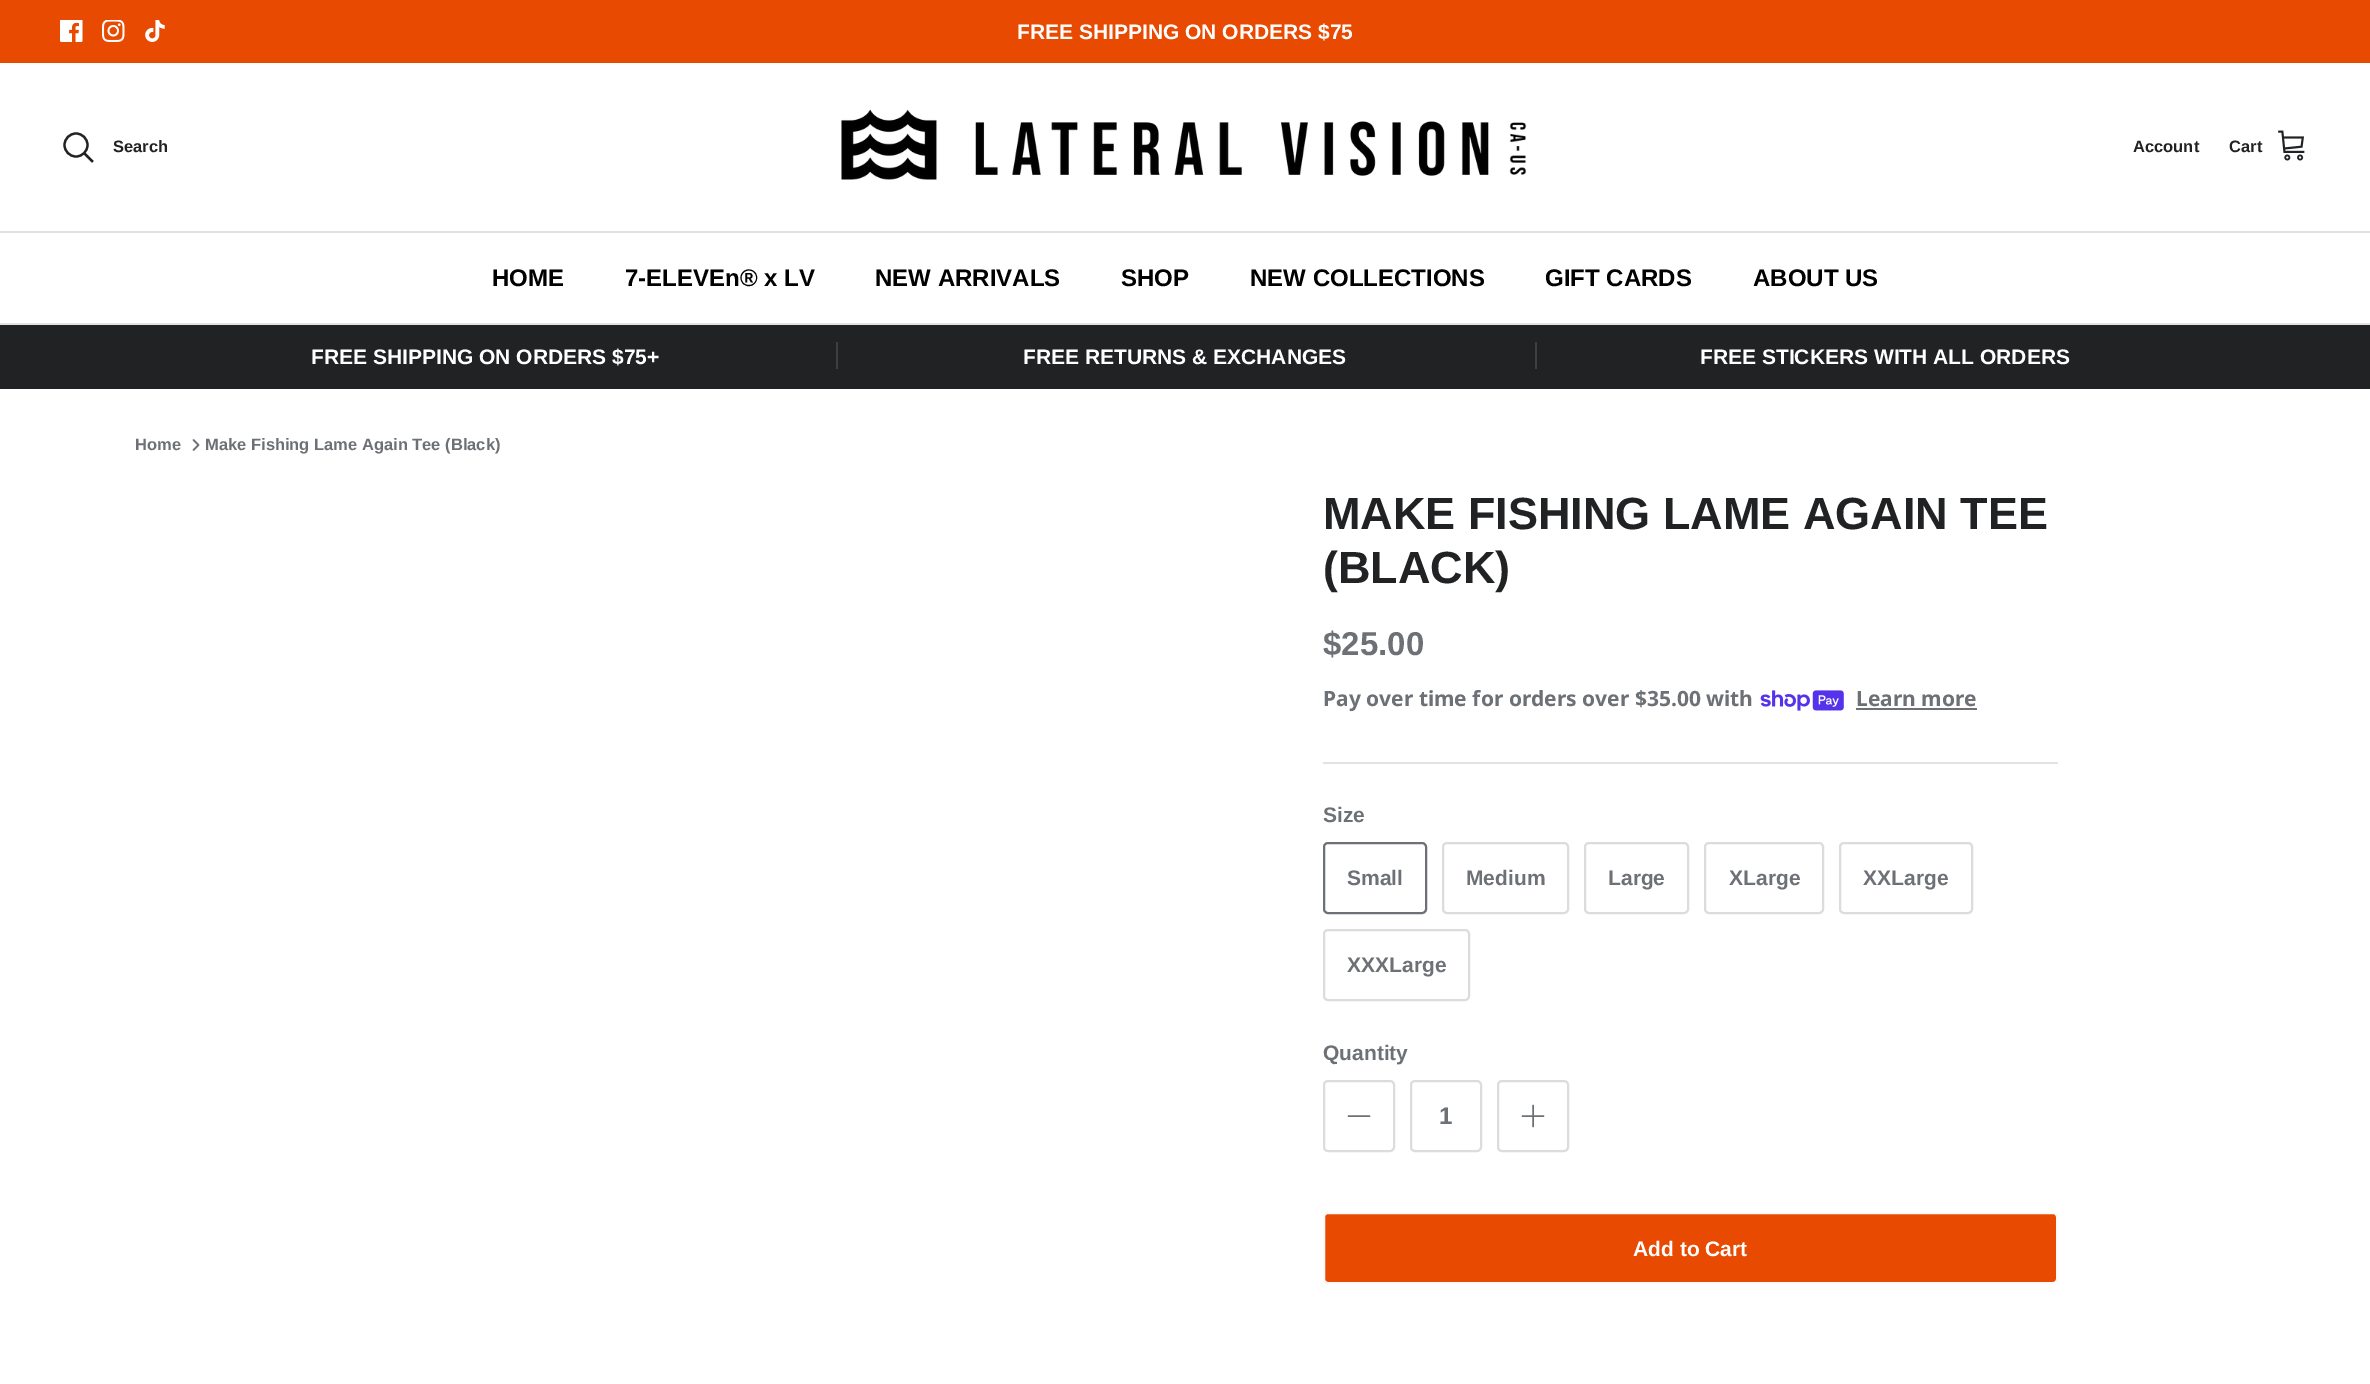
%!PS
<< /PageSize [2370 1384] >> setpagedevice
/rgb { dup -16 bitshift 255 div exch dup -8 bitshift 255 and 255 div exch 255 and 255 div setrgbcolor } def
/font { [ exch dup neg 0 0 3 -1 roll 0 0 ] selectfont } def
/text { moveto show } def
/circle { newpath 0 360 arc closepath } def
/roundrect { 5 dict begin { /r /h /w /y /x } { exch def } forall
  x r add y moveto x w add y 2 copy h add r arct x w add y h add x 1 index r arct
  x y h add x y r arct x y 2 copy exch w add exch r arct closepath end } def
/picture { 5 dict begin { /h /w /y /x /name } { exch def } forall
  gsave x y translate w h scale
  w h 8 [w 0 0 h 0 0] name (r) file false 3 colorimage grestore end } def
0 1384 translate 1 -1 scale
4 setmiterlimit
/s1 { /LiberationSans-Bold 21 font 16#FFFFFF rgb } def
/s2 { /LiberationSans-Bold 16.5 font 16#202223 rgb } def
/s3 { /LiberationSans-Bold 24 font 16#000000 rgb } def
/s4 { /LiberationSans-Bold 16.5 font 16#6D7175 rgb } def
/s5 { /LiberationSans-Bold 45 font 16#202223 rgb } def
/s6 { /LiberationSans-Bold 33 font 16#6D7175 rgb } def
/s7 { /NotoSans-Bold 21 font 16#6D7175 rgb } def
/s8 { /LiberationSans-Bold 21 font 16#6D7175 rgb } def
/s9 { /LiberationSans-Bold 24 font 16#6D7175 rgb } def
16#FFFFFF rgb
0 0 2370 1384 rectfill
16#E84A01 rgb
0 0 2370 63 rectfill
(pic1.raw) 60 20 23 22 picture
(pic2.raw) 102 20 23 22 picture
(pic3.raw) 145 20 20 22 picture
s1
(FREE SHIPPING ON ORDERS $75) 1017 39 text
16#E2E2E2 rgb
0 231 2370 2 rectfill
16#202223 rgb
2.2 setlinewidth
76 145 11.5 circle stroke
s2
(Search) 113 152 text
2 setlinecap
85.5 154.5 moveto 92 161 lineto stroke
(pic4.raw) 841 109 686 71 picture
(Account) 2133 152 text
(Cart) 2229 152 text
(pic5.raw) 2278 130 27 31 picture
16#E2E2E2 rgb
0 323 2370 2 rectfill
s3
(HOME) 492 286 text
(7-ELEVEn® x LV) 625 286 text
(NEW ARRIVALS) 875 286 text
(SHOP) 1121 286 text
(NEW COLLECTIONS) 1250 286 text
(GIFT CARDS) 1545 286 text
(ABOUT US) 1753 286 text
16#202223 rgb
0 325 2370 64 rectfill
s1
(FREE SHIPPING ON ORDERS $75+) 311 364 text
16#3D3F40 rgb
836 342 2 27 rectfill
s1
(FREE RETURNS & EXCHANGES) 1023 364 text
16#3D3F40 rgb
1535 342 2 27 rectfill
s1
(FREE STICKERS WITH ALL ORDERS) 1700 364 text
s4
(Home) 135 450 text
1.6 setlinewidth
1 setlinecap
1 setlinejoin
193.5 450 moveto 198.5 445 lineto 193.5 440 lineto stroke
(Make Fishing Lame Again Tee \(Black\)) 205 450 text
s5
(MAKE FISHING LAME AGAIN TEE) 1323 529 text
(\(BLACK\)) 1323 583 text
s6
($25.00) 1323 655 text
s7
(Pay over time for orders over $35.00 with) 1323 706 text
(pic6.raw) 1760 690 84 21 picture
(Learn more) 1856 706 text
1856 708 121 2 rectfill
16#E2E2E2 rgb
1323 762 735 2 rectfill
s8
(Size) 1323 822 text
2 setlinewidth
0 setlinecap
0 setlinejoin
1324 843 102 70 4 roundrect stroke
(Small) 1347 885 text
16#DBDCDD rgb
1443 843 125 70 4 roundrect stroke
s8
(Medium) 1466 885 text
16#DBDCDD rgb
1585 843 103 70 4 roundrect stroke
s8
(Large) 1608 885 text
16#DBDCDD rgb
1705 843 118 70 4 roundrect stroke
s8
(XLarge) 1729 885 text
16#DBDCDD rgb
1840 843 132 70 4 roundrect stroke
s8
(XXLarge) 1863 885 text
16#DBDCDD rgb
1324 930 145 70 4 roundrect stroke
s8
(XXXLarge) 1347 972 text
(Quantity) 1323 1060 text
16#DBDCDD rgb
1324 1081 70 70 4 roundrect stroke
16#6D7175 rgb
1.5 setlinewidth
1 setlinecap
1 setlinejoin
1348.5 1116 moveto 1369.5 1116 lineto stroke
16#DBDCDD rgb
2 setlinewidth
0 setlinecap
0 setlinejoin
1411 1081 70 70 4 roundrect stroke
s9
(1) 1439 1124 text
16#DBDCDD rgb
1498 1081 70 70 4 roundrect stroke
16#6D7175 rgb
1.5 setlinewidth
1 setlinecap
1 setlinejoin
1533 1105.5 moveto 1533 1126.5 lineto 1522.5 1116 moveto 1543.5 1116 lineto stroke
16#E84A01 rgb
1324 1213 733 70 4 roundrect gsave fill grestore
16#FAFAFA rgb
2 setlinewidth
0 setlinecap
0 setlinejoin
stroke
s1
(Add to Cart) 1633 1256 text
showpage
